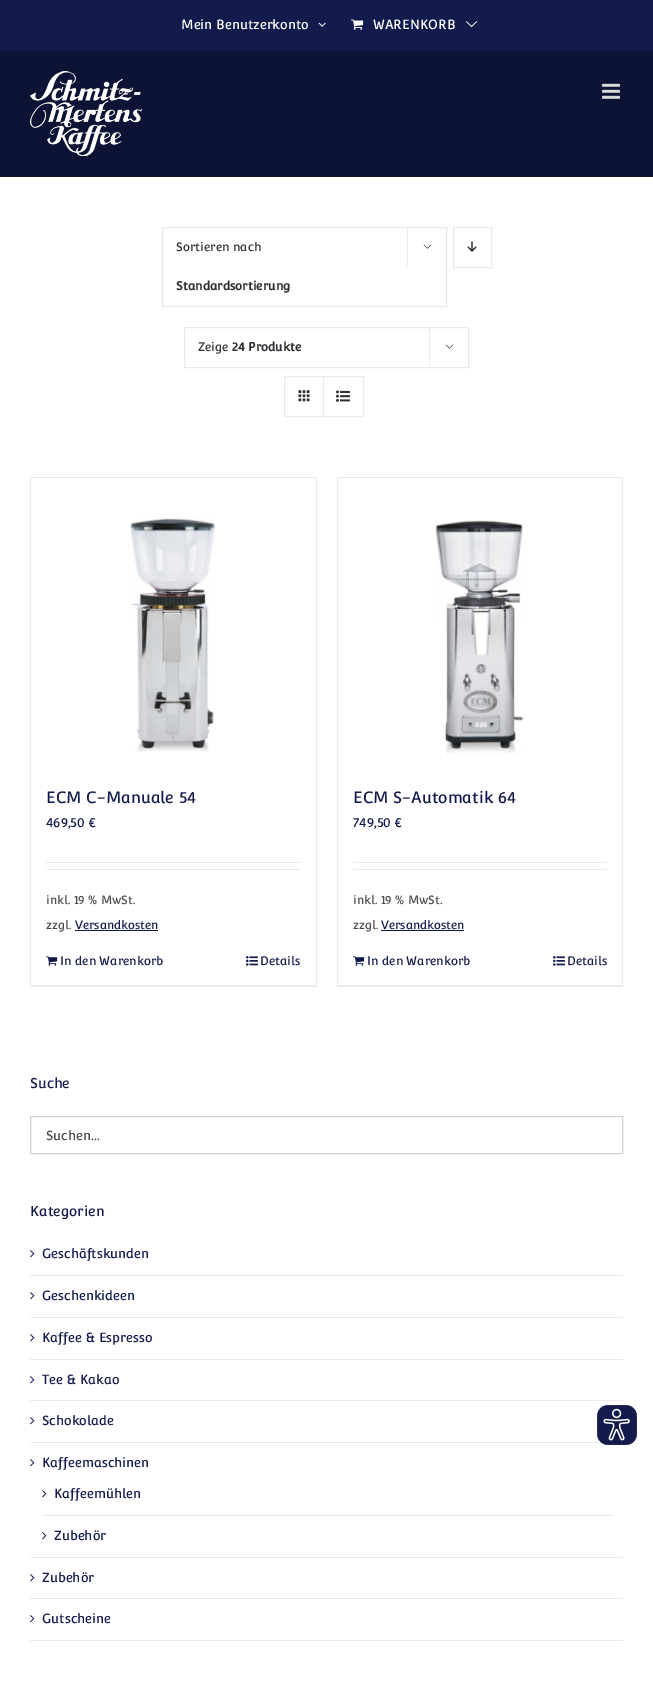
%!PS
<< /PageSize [653 1701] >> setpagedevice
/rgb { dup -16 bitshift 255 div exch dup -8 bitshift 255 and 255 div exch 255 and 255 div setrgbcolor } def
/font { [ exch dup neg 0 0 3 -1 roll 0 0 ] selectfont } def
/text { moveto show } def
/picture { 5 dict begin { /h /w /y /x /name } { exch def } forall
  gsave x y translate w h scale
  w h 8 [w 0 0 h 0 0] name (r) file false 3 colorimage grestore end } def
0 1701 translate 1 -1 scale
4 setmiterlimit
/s1 { /Convergence-Regular 13 font 16#FFFFFF rgb } def
/s2 { /Convergence-Regular 12 font 16#2B2E32 rgb } def
/s3 { /Convergence-Bold 12 font 16#2B2E32 rgb } def
/s4 { /Convergence-Regular 16 font 16#131B4D rgb } def
/s5 { /Convergence-Regular 13 font 16#131B4D rgb } def
/s6 { /Convergence-Regular 11.75 font 16#494949 rgb } def
/s7 { /Convergence-Regular 11.75 font 16#131B4D rgb } def
/s8 { /Convergence-Regular 12 font 16#131B4D rgb } def
/s9 { /Convergence-Regular 14 font 16#131B4D rgb } def
/s10 { /Convergence-Regular 13 font 16#494949 rgb } def
16#FFFFFF rgb
0 0 653 1701 rectfill
16#131B4D rgb
0 0 653 51 rectfill
s1
(Mein Benutzerkonto) 181 29 text
(pic1.raw) 318 22 8 5 picture
(pic2.raw) 351 19 13 11 picture
(WARENKORB) 373 29 text
(pic3.raw) 466 21 11 7 picture
16#0D1334 rgb
0 51 653 126 rectfill
(pic4.raw) 30 71 112 85 picture
(pic5.raw) 602 83 18 16 picture
16#EAEAEA rgb
162.5 227.5 284 79 rectstroke
s2
(Sortieren nach) 176 251 text
s3
(Standardsortierung) 176 290 text
16#EAEAEA rgb
407 227 1 39 rectfill
(pic6.raw) 423 244 9 5 picture
453.5 227.5 38 40 rectstroke
(pic7.raw) 467 241 10 11 picture
184.5 327.5 284 40 rectstroke
s2
(Zeige) 198 351 text
s3
(24 Produkte) 232 351 text
16#EAEAEA rgb
429 327 1 39 rectfill
(pic6.raw) 445 344 9 5 picture
284.5 376.5 79 40 rectstroke
323 377 1 39 rectfill
(pic8.raw) 298 390 12 12 picture
(pic9.raw) 336 390 14 12 picture
30 477 287 1 rectfill
316 477 1 510 rectfill
30 985 287 2 rectfill
30 477 1 510 rectfill
(pic10.raw) 130 518 85 234 picture
s4
(ECM C-Manuale 54) 46 803 text
s5
(469,50 €) 46 827 text
16#EAEAEA rgb
46 862 255 1 rectfill
46 869 255 1 rectfill
s6
(inkl. 19 % MwSt.) 46 904 text
(zzgl.) 46 929 text
s7
(Versandkosten) 75 929 text
75 930 83 1 rectfill
(pic11.raw) 46 956 12 10 picture
s8
(In den Warenkorb) 60 965 text
(pic12.raw) 246 956 12 10 picture
(Details) 260 965 text
16#EAEAEA rgb
337 477 286 1 rectfill
622 477 1 510 rectfill
337 985 286 2 rectfill
337 477 1 510 rectfill
(pic13.raw) 435 520 89 234 picture
s4
(ECM S-Automatik 64) 353 803 text
s5
(749,50 €) 353 827 text
16#EAEAEA rgb
353 862 254 1 rectfill
353 869 254 1 rectfill
s6
(inkl. 19 % MwSt.) 353 904 text
(zzgl.) 353 929 text
s7
(Versandkosten) 381 929 text
381 930 83 1 rectfill
(pic11.raw) 353 956 12 10 picture
s8
(In den Warenkorb) 367 965 text
(pic12.raw) 553 956 12 10 picture
(Details) 567 965 text
s9
(Suche) 30 1088 text
16#D2D2D2 rgb
30.5 1116.5 592 37 rectstroke
s10
(Suchen...) 46 1140 text
s9
(Kategorien) 30 1216 text
16#EAEAEA rgb
30 1275 593 1 rectfill
(pic14.raw) 30 1250 5 8 picture
s5
(Geschäftskunden) 42 1258 text
16#EAEAEA rgb
30 1317 593 1 rectfill
(pic14.raw) 30 1292 5 8 picture
s5
(Geschenkideen) 42 1300 text
16#EAEAEA rgb
30 1359 593 1 rectfill
(pic14.raw) 30 1334 5 8 picture
s5
(Kaffee & Espresso) 42 1342 text
16#EAEAEA rgb
30 1400 593 1 rectfill
(pic14.raw) 30 1376 5 8 picture
s5
(Tee & Kakao) 42 1384 text
16#EAEAEA rgb
30 1442 571 1 rectfill
(pic14.raw) 30 1417 5 8 picture
s5
(Schokolade) 42 1425 text
16#EAEAEA rgb
30 1557 593 1 rectfill
(pic14.raw) 30 1459 5 8 picture
s5
(Kaffeemaschinen) 42 1467 text
16#EAEAEA rgb
42 1515 571 1 rectfill
(pic14.raw) 42 1490 5 8 picture
s5
(Kaffeemühlen) 54 1498 text
(pic14.raw) 42 1532 5 8 picture
(Zubehör) 54 1540 text
16#EAEAEA rgb
30 1598 593 1 rectfill
(pic14.raw) 30 1574 5 8 picture
s5
(Zubehör) 42 1582 text
16#EAEAEA rgb
30 1640 593 1 rectfill
(pic14.raw) 30 1615 5 8 picture
s5
(Gutscheine) 42 1623 text
(pic15.raw) 596 1404 42 42 picture
showpage
